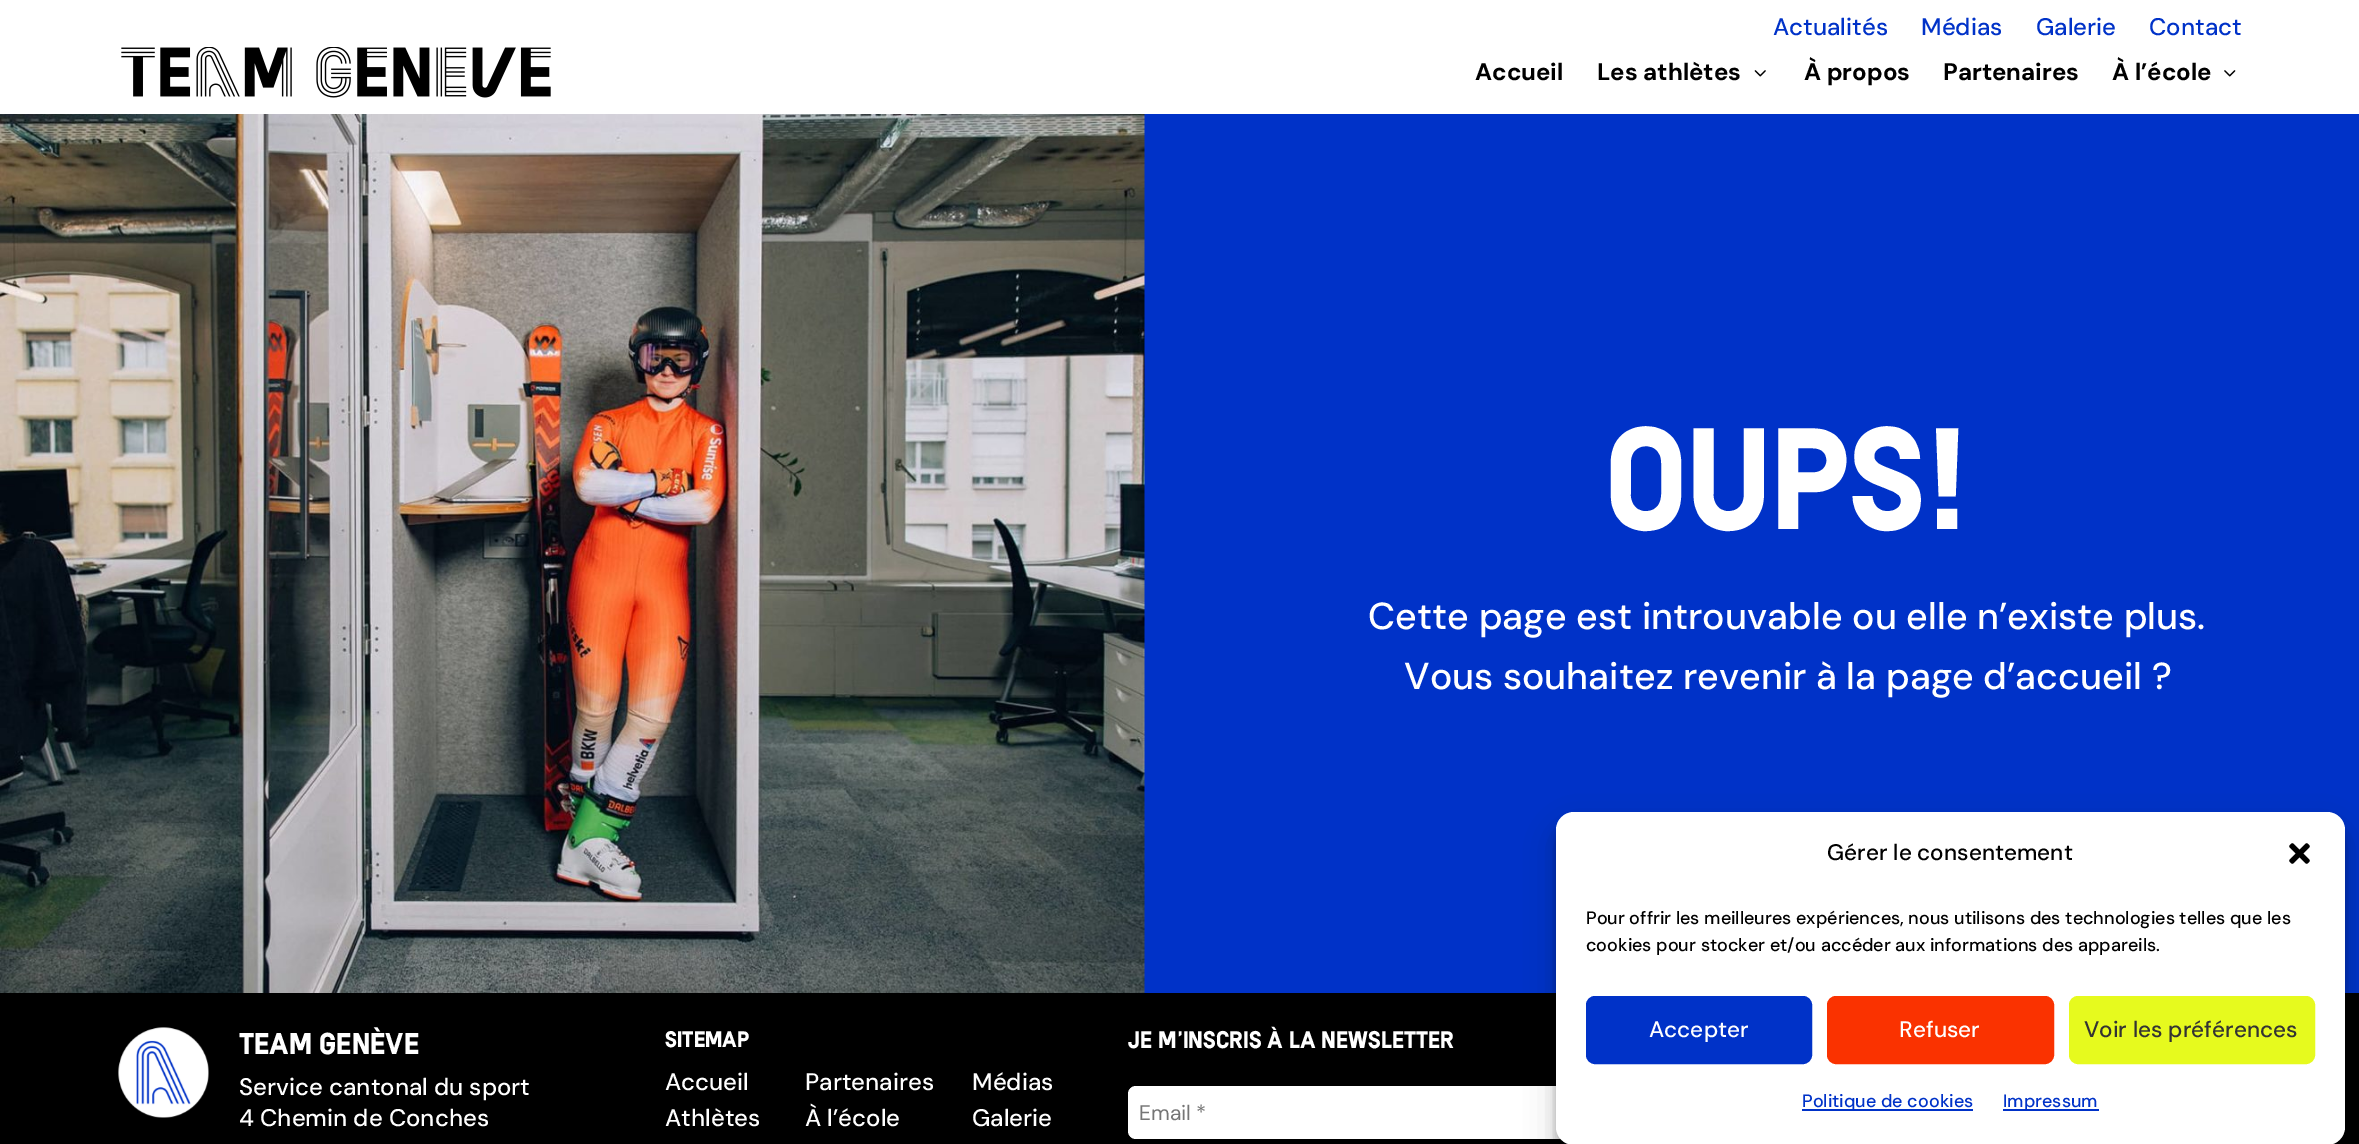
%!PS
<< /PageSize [2359 1144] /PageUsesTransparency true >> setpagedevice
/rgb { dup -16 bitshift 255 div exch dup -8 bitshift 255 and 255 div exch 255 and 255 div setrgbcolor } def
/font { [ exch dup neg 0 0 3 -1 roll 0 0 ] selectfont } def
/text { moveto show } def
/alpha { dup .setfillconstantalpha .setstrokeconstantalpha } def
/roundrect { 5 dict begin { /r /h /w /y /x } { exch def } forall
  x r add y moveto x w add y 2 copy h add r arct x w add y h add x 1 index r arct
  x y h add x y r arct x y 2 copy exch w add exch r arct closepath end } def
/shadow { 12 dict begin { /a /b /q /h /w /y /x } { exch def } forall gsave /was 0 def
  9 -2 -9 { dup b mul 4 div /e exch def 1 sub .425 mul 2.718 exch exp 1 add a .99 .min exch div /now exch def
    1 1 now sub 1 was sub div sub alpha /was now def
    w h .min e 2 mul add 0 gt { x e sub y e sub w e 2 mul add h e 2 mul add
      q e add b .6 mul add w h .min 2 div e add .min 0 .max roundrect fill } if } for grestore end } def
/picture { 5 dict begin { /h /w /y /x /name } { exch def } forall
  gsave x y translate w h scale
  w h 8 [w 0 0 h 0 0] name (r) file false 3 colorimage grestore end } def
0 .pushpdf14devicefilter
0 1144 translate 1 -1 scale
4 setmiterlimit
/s1 { /DMSans-Medium 24 font 16#0032C8 rgb } def
/s2 { /DMSans-Bold 24 font 16#000000 rgb } def
/s3 { /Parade-Regular 144 font 16#FFFFFF rgb } def
/s4 { /DMSans-Medium 37.5 font 16#FFFFFF rgb } def
/s5 { /Parade-Regular 30 font 16#FFFFFF rgb } def
/s6 { /DMSans-Medium 24 font 16#FFFFFF rgb } def
/s7 { /Parade-Regular 22.5 font 16#FFFFFF rgb } def
/s8 { /Parade-Regular 24 font 16#FFFFFF rgb } def
/s9 { /DMSans-Regular 21 font 16#757575 rgb } def
/s10 { /DMSans-Medium 22.5 font 16#000000 rgb } def
/s11 { /DMSans-Medium 18 font 16#000000 rgb } def
/s12 { /DMSans-Medium 22.5 font 16#FFFFFF rgb } def
/s13 { /DMSans-Medium 22.5 font 16#333333 rgb } def
/s14 { /DMSans-Medium 18 font 16#0032C8 rgb } def
16#FFFFFF rgb
0 0 2359 1144 rectfill
s1
(Actualités) 1773 35 text
(Médias) 1921 35 text
(Galerie) 2036 35 text
(Contact) 2149 35 text
(pic1.raw) 121 47 430 51 picture
s2
(Accueil) 1475 80 text
(Les athlètes) 1597 80 text
(pic2.raw) 1754 70 12 7 picture
(À propos) 1804 80 text
(Partenaires) 1943 80 text
(À l’école) 2112 80 text
(pic3.raw) 2224 70 12 7 picture
16#0032C8 rgb
1144 114 1215 879 rectfill
(pic4.raw) 0 114 1145 879 picture
s3
(Oups!) 1605 529 text
s4
(Cette page est introuvable ou elle n’existe plus.) 1368 629 text
(Vous souhaitez revenir à la page d’accueil ?) 1404 689 text
16#000000 rgb
0 993 2359 151 rectfill
(pic5.raw) 118 1027 91 91 picture
s5
(Team Genève) 239 1054 text
s6
(Service cantonal du sport) 239 1095 text
(4 Chemin de Conches) 239 1126 text
s7
(Sitemap) 665 1047 text
s6
(Accueil) 665 1090 text
(Athlètes) 665 1126 text
(Partenaires) 805 1090 text
(À l’école) 805 1126 text
(Médias) 972 1090 text
(Galerie) 972 1126 text
s8
(Je m’inscris à la newsletter) 1128 1048 text
1128 1086 483 53 8 roundrect fill
s9
(Email *) 1139 1120 text
16#000000 rgb
1556 821 789 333 18 4.5 0.23 shadow
1556 827 789 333 18 15 0.19 shadow
16#FFFFFF rgb
1556 812 789 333 18 roundrect fill
s10
(Gérer le consentement) 1827 860 text
(pic6.raw) 2289 843 21 21 picture
s11
(Pour offrir les meilleures expériences, nous utilisons des technologies telles que les) 1586 924 text
(cookies pour stocker et/ou accéder aux informations des appareils.) 1586 951 text
16#0032C8 rgb
1587 997 224 66 8 roundrect gsave fill grestore
2 setlinewidth
stroke
s12
(Accepter) 1649 1037 text
16#FA3200 rgb
1828 997 225 66 8 roundrect gsave fill grestore
stroke
s12
(Refuser) 1899 1037 text
16#E6FA1E rgb
2070 997 244 66 8 roundrect gsave fill grestore
stroke
s13
(Voir les préférences) 2084 1037 text
16#0032C8 rgb
1802 1109 171 2 rectfill
s14
(Politique de cookies) 1802 1107 text
2003 1109 96 2 rectfill
(Impressum) 2003 1107 text
.poppdf14devicefilter showpage
